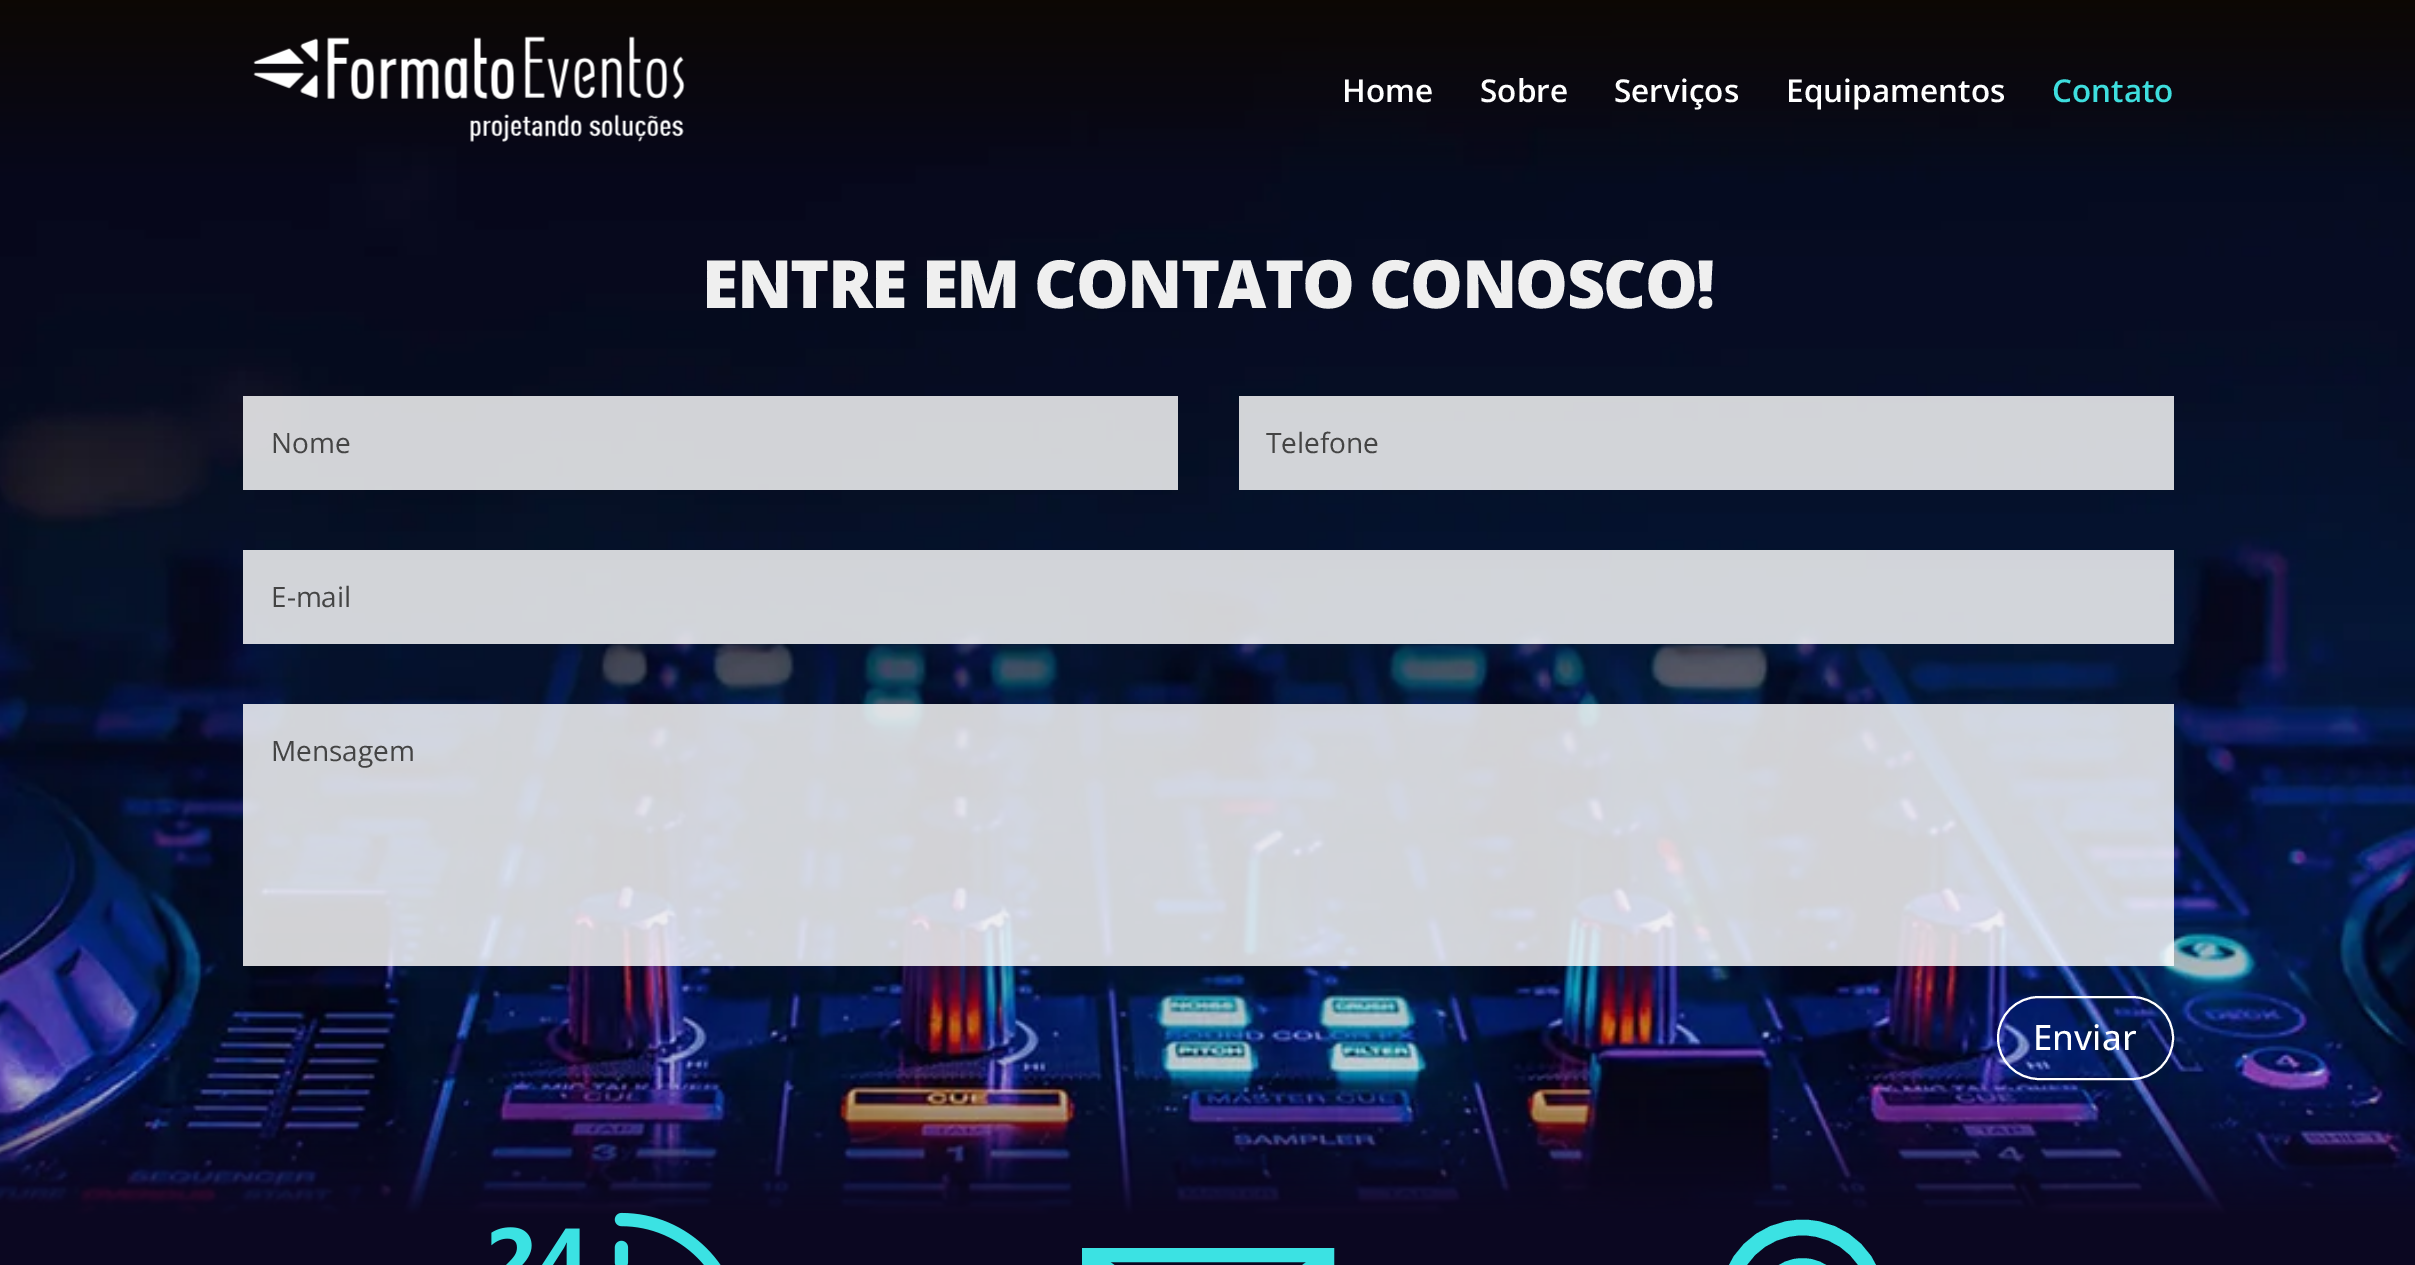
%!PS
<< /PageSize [2415 1265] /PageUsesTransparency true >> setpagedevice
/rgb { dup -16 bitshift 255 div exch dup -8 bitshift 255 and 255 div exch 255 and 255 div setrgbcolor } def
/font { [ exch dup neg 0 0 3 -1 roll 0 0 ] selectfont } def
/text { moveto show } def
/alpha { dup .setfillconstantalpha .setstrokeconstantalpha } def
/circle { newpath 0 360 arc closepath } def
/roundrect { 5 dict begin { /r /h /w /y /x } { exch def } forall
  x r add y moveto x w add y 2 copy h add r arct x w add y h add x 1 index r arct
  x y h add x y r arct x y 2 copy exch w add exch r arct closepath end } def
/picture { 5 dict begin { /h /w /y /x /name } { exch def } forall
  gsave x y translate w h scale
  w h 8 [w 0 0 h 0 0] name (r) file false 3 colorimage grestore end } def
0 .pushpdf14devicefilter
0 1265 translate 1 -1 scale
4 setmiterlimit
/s1 { /OpenSans-SemiBold 31.5 font 16#FFFFFF rgb } def
/s2 { /OpenSans-SemiBold 31.5 font 16#3EDEDE rgb } def
/s3 { /OpenSans-Regular 28 font 16#444444 rgb } def
/s4 { /OpenSans-Medium 35 font 16#FFFFFF rgb } def
16#FFFFFF rgb
0 0 2415 1265 rectfill
(pic2.raw) 0 0 2415 1265 picture
(pic1.raw) 253 36 432 106 picture
s1
(Home) 1342 102 text
(Sobre) 1480 102 text
(Serviços) 1614 102 text
(Equipamentos) 1786 102 text
s2
(Contato) 2052 102 text
/OpenSans-ExtraBold 66.5 font
16#EFEFEF rgb
702 308 moveto -1.75 0 (ENTRE EM CONTATO CONOSCO!) ashow
0.82 alpha
16#FFFFFF rgb
243 396 935 94 rectfill
1 alpha
s3
(Nome) 271 453 text
0.82 alpha
16#FFFFFF rgb
1239 396 935 94 rectfill
1 alpha
s3
(Telefone) 1266 453 text
0.82 alpha
16#FFFFFF rgb
243 550 1931 94 rectfill
1 alpha
s3
(E-mail) 271 607 text
0.82 alpha
16#FFFFFF rgb
243 704 1931 262 rectfill
1 alpha
s3
(Mensagem) 271 761 text
16#FFFFFF rgb
2 setlinewidth
1998 997 175 82 41 roundrect stroke
s4
(Enviar) 2033 1050 text
(pic3.raw) 491 1212 230 53 picture
16#3BE2E3 rgb
14 setlinewidth
1089 1255 238 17 rectstroke
13.8 setlinewidth
1 setlinecap
1 setlinejoin
1089 1255 moveto 1212.5 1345.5 lineto 1326 1255 lineto stroke
15.6 setlinewidth
1877.5 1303 moveto 1877.5 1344.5 1802.5 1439.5 1802.5 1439.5 curveto 1802.5 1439.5 1727.5 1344.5 1727.5 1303 curveto 1727.5 1261 1761 1227.5 1802.5 1227.5 curveto 1844 1227.5 1877.5 1261 1877.5 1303 curveto closepath stroke
0 setlinecap
0 setlinejoin
1802.5 1303 37 circle stroke
.poppdf14devicefilter showpage
